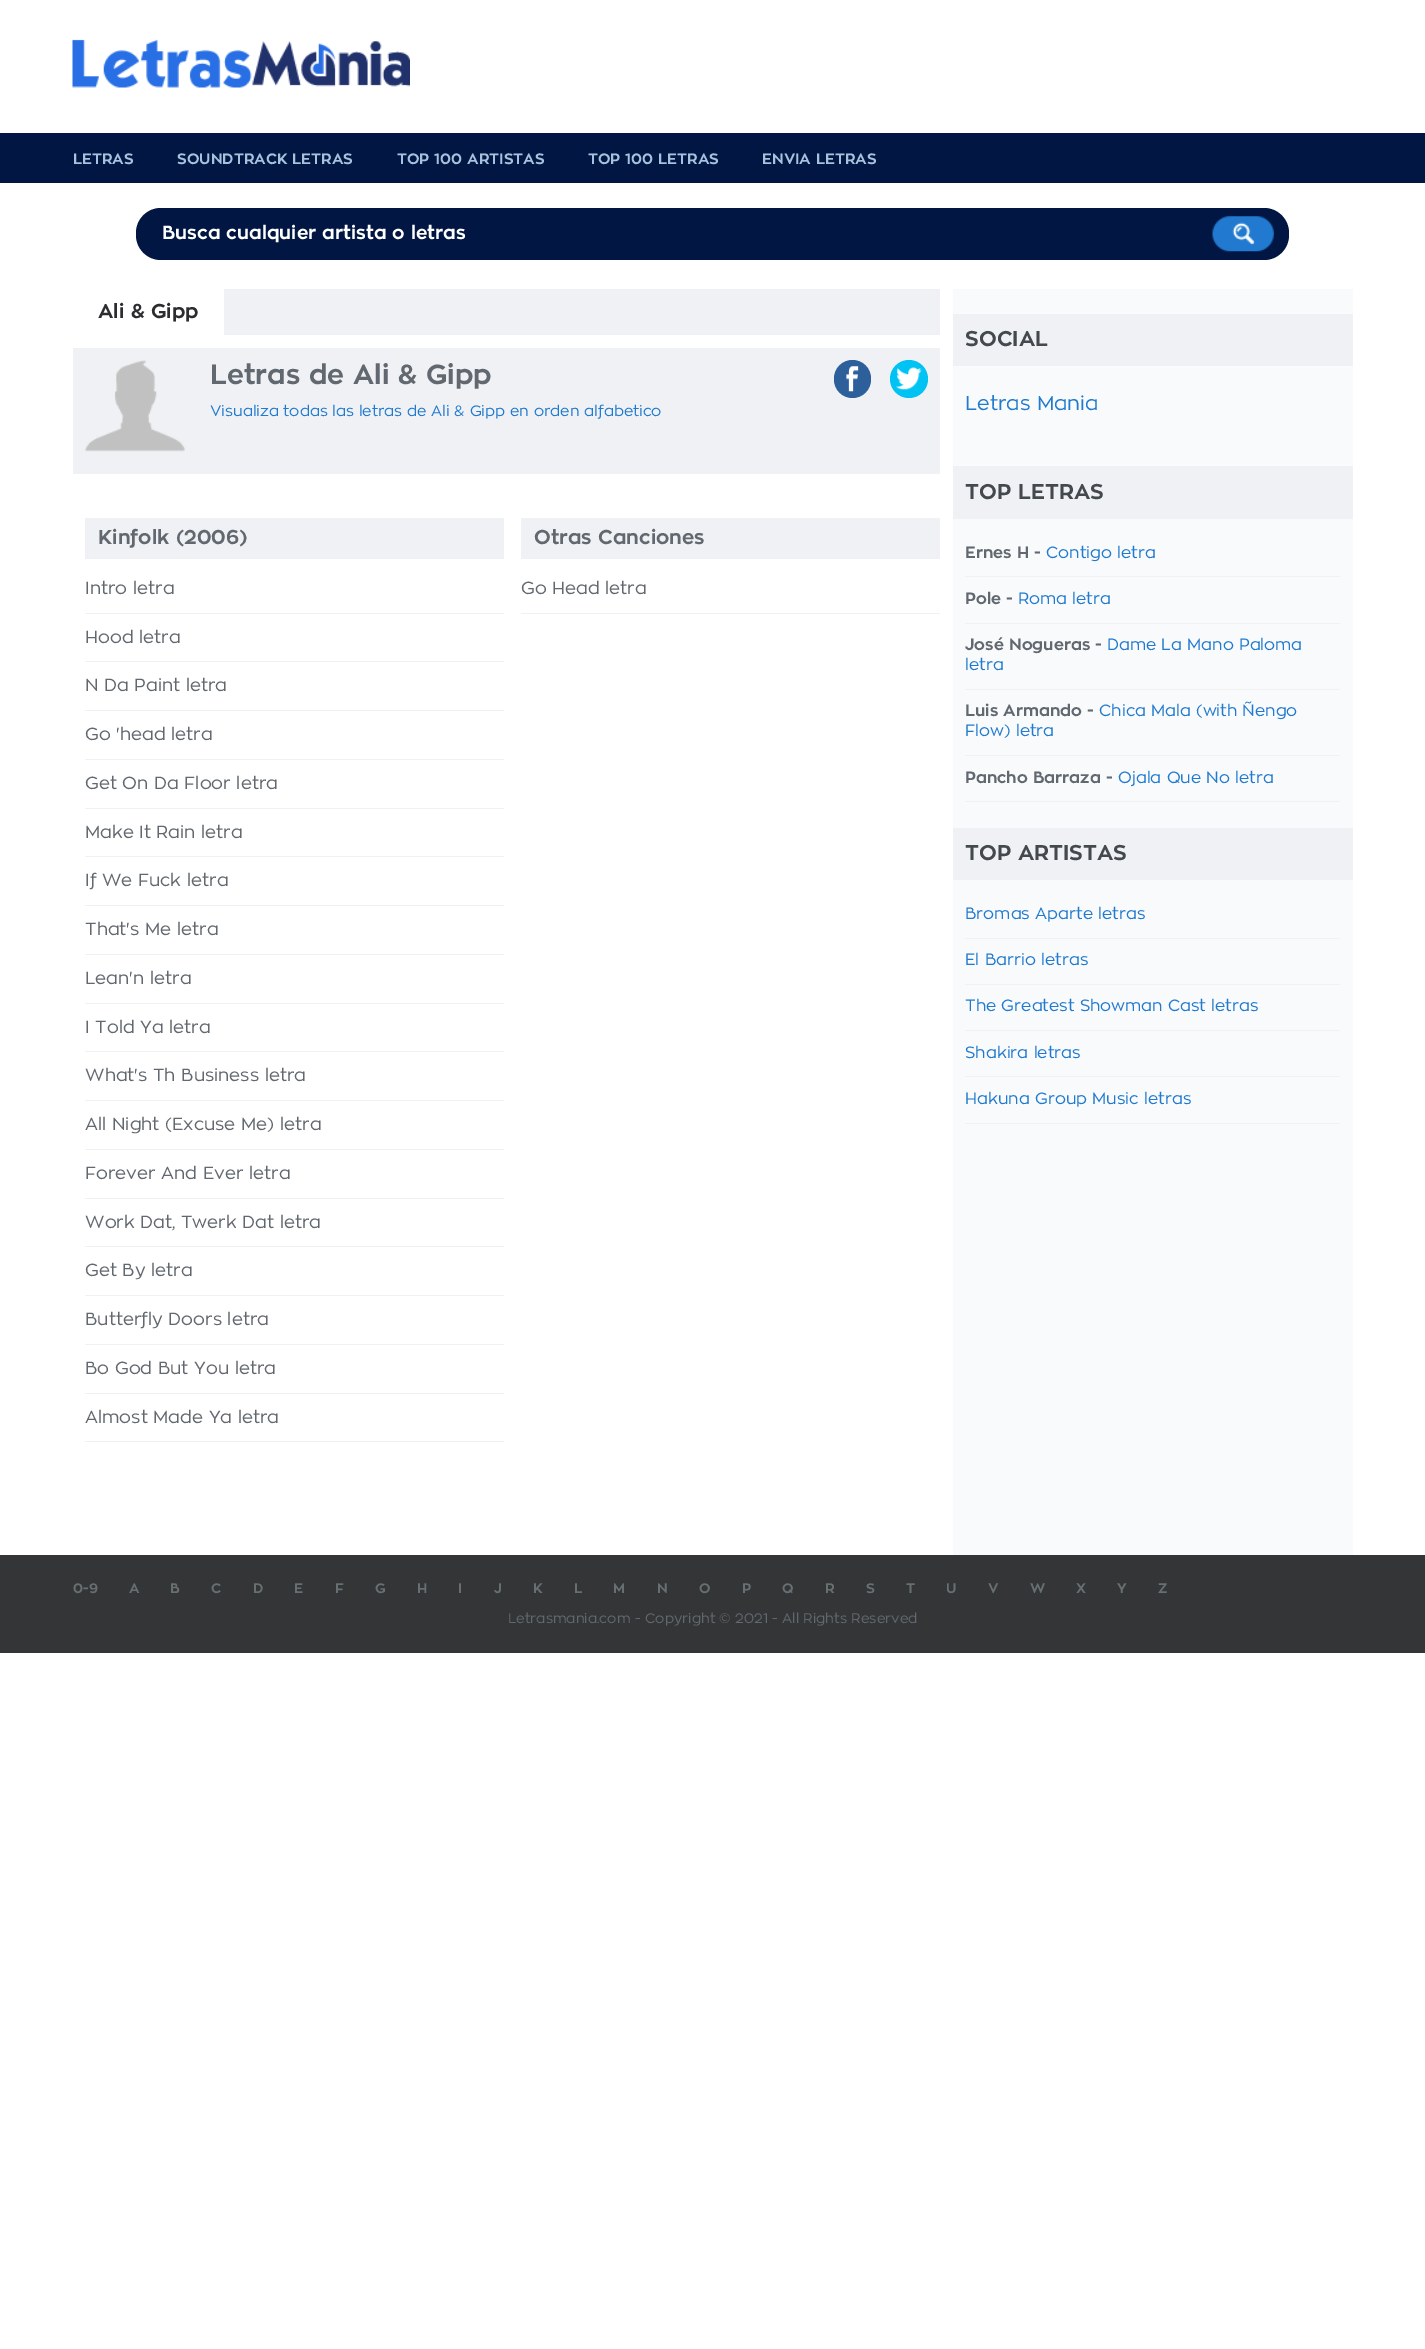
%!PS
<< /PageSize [1425 2349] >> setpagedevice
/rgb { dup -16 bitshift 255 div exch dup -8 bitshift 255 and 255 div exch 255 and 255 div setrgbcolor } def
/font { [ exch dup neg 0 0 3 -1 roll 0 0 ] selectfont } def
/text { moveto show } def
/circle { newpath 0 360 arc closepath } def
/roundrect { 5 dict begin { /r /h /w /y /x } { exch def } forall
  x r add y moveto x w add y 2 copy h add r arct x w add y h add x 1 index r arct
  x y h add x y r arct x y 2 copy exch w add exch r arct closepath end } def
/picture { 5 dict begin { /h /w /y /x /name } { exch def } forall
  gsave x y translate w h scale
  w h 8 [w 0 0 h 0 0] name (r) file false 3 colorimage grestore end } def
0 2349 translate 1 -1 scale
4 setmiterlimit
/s1 { /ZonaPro-Bold 15 font 16#A6C2DD rgb } def
/s2 { /ZonaPro-Bold 18.75 font 16#FFFFFF rgb } def
/s3 { /ZonaPro-Bold 20 font 16#2C2D2F rgb } def
/s4 { /ZonaPro-Bold 27.5 font 16#62686F rgb } def
/s5 { /ZonaPro-Regular 15 font 16#217ACF rgb } def
/s6 { /ZonaPro-Bold 20 font 16#62686F rgb } def
/s7 { /ZonaPro-Regular 17.5 font 16#62686F rgb } def
/s8 { /ZonaPro-Bold 21.25 font 16#44494D rgb } def
/s9 { /ZonaPro-Regular 20 font 16#217ACF rgb } def
/s10 { /ZonaPro-Bold 16.25 font 16#62686F rgb } def
/s11 { /ZonaPro-Regular 16.25 font 16#217ACF rgb } def
/s12 { /ZonaPro-Bold 13.75 font 16#686F72 rgb } def
/s13 { /ZonaPro-Regular 13.75 font 16#62686F rgb } def
16#FFFFFF rgb
0 0 1425 2349 rectfill
(pic1.raw) 72 39 338 49 picture
16#021643 rgb
0 133 1425 50 rectfill
s1
(LETRAS) 73 164 text
(SOUNDTRACK LETRAS) 177 164 text
(TOP 100 ARTISTAS) 397 164 text
(TOP 100 LETRAS) 588 164 text
(ENVIA LETRAS) 762 164 text
16#021643 rgb
136 208 1153 52 25 roundrect fill
s2
(Busca cualquier artista o letras) 162 239 text
(pic2.raw) 1212 216 62 36 picture
16#EFF1F5 rgb
224 289 716 46 rectfill
s3
(Ali & Gipp) 98 318 text
16#EFF1F5 rgb
73 348 867 126 rectfill
(pic3.raw) 85 360 100 92 picture
16#F1F1F1 rgb
210 460 718 1 rectfill
s4
(Letras de Ali & Gipp) 210 384 text
s5
(Visualiza todas las letras de Ali & Gipp en orden alfabetico) 210 416 text
16#2D609B rgb
834 360 37 38 18.5 roundrect fill
(pic4.raw) 846 366 13 26 picture
16#00C3F3 rgb
909 379 19 circle fill
(pic5.raw) 896 367 26 23 picture
16#EFF1F5 rgb
85 518 419 41 rectfill
s6
(Kinfolk \(2006\)) 98 544 text
16#F1F1F1 rgb
85 613 419 1 rectfill
s7
(Intro letra) 85 594 text
16#F1F1F1 rgb
85 661 419 1 rectfill
s7
(Hood letra) 85 643 text
16#F1F1F1 rgb
85 710 419 1 rectfill
s7
(N Da Paint letra) 85 691 text
16#F1F1F1 rgb
85 759 419 1 rectfill
s7
(Go 'head letra) 85 740 text
16#F1F1F1 rgb
85 808 419 1 rectfill
s7
(Get On Da Floor letra) 85 789 text
16#F1F1F1 rgb
85 856 419 1 rectfill
s7
(Make It Rain letra) 85 838 text
16#F1F1F1 rgb
85 905 419 1 rectfill
s7
(If We Fuck letra) 85 886 text
16#F1F1F1 rgb
85 954 419 1 rectfill
s7
(That's Me letra) 85 935 text
16#F1F1F1 rgb
85 1003 419 1 rectfill
s7
(Lean'n letra) 85 984 text
16#F1F1F1 rgb
85 1051 419 1 rectfill
s7
(I Told Ya letra) 85 1033 text
16#F1F1F1 rgb
85 1100 419 1 rectfill
s7
(What's Th Business letra) 85 1081 text
16#F1F1F1 rgb
85 1149 419 1 rectfill
s7
(All Night \(Excuse Me\) letra) 85 1130 text
16#F1F1F1 rgb
85 1198 419 1 rectfill
s7
(Forever And Ever letra) 85 1179 text
16#F1F1F1 rgb
85 1246 419 1 rectfill
s7
(Work Dat, Twerk Dat letra) 85 1228 text
16#F1F1F1 rgb
85 1295 419 1 rectfill
s7
(Get By letra) 85 1276 text
16#F1F1F1 rgb
85 1344 419 1 rectfill
s7
(Butterfly Doors letra) 85 1325 text
16#F1F1F1 rgb
85 1393 419 1 rectfill
s7
(Bo God But You letra) 85 1374 text
16#F1F1F1 rgb
85 1441 419 1 rectfill
s7
(Almost Made Ya letra) 85 1423 text
16#EFF1F5 rgb
521 518 419 41 rectfill
s6
(Otras Canciones) 534 544 text
16#F1F1F1 rgb
521 613 419 1 rectfill
s7
(Go Head letra) 521 594 text
16#F8FAFB rgb
953 289 400 1266 rectfill
16#EFF1F5 rgb
953 314 400 52 rectfill
s8
(SOCIAL) 965 346 text
s9
(Letras Mania) 965 410 text
16#EFF1F5 rgb
953 466 400 53 rectfill
s8
(TOP LETRAS) 965 499 text
16#F1F1F1 rgb
965 576 375 1 rectfill
s10
(Ernes H -) 965 558 text
s11
(Contigo letra) 1046 558 text
16#F1F1F1 rgb
965 623 375 1 rectfill
s10
(Pole -) 965 604 text
s11
(Roma letra) 1018 604 text
16#F1F1F1 rgb
965 689 375 1 rectfill
s10
(José Nogueras -) 965 650 text
s11
(Dame La Mano Paloma) 1107 650 text
(letra) 965 670 text
16#F1F1F1 rgb
965 755 375 1 rectfill
s10
(Luis Armando -) 965 716 text
s11
(Chica Mala \(with Ñengo) 1099 716 text
(Flow\) letra) 965 736 text
16#F1F1F1 rgb
965 801 375 1 rectfill
s10
(Pancho Barraza -) 965 783 text
s11
(Ojala Que No letra) 1118 783 text
16#EFF1F5 rgb
953 828 400 52 rectfill
s8
(TOP ARTISTAS) 965 860 text
16#F1F1F1 rgb
965 938 375 1 rectfill
s11
(Bromas Aparte letras) 965 919 text
16#F1F1F1 rgb
965 984 375 1 rectfill
s11
(El Barrio letras) 965 965 text
16#F1F1F1 rgb
965 1030 375 1 rectfill
s11
(The Greatest Showman Cast letras) 965 1011 text
16#F1F1F1 rgb
965 1076 375 1 rectfill
s11
(Shakira letras) 965 1058 text
16#F1F1F1 rgb
965 1123 375 1 rectfill
s11
(Hakuna Group Music letras) 965 1104 text
16#343536 rgb
0 1555 1425 98 rectfill
s12
(0-9) 73 1593 text
(A) 129 1593 text
(B) 170 1593 text
(C) 211 1593 text
(D) 253 1593 text
(E) 294 1593 text
(F) 335 1593 text
(G) 375 1593 text
(H) 417 1593 text
(I) 458 1593 text
(J) 494 1593 text
(K) 533 1593 text
(L) 574 1593 text
(M) 613 1593 text
(N) 657 1593 text
(O) 699 1593 text
(P) 742 1593 text
(Q) 782 1593 text
(R) 825 1593 text
(S) 866 1593 text
(T) 906 1593 text
(U) 946 1593 text
(V) 988 1593 text
(W) 1030 1593 text
(X) 1076 1593 text
(Y) 1117 1593 text
(Z) 1158 1593 text
s13
(Letrasmania.com - Copyright © 2021 - All Rights Reserved) 508 1623 text
showpage
